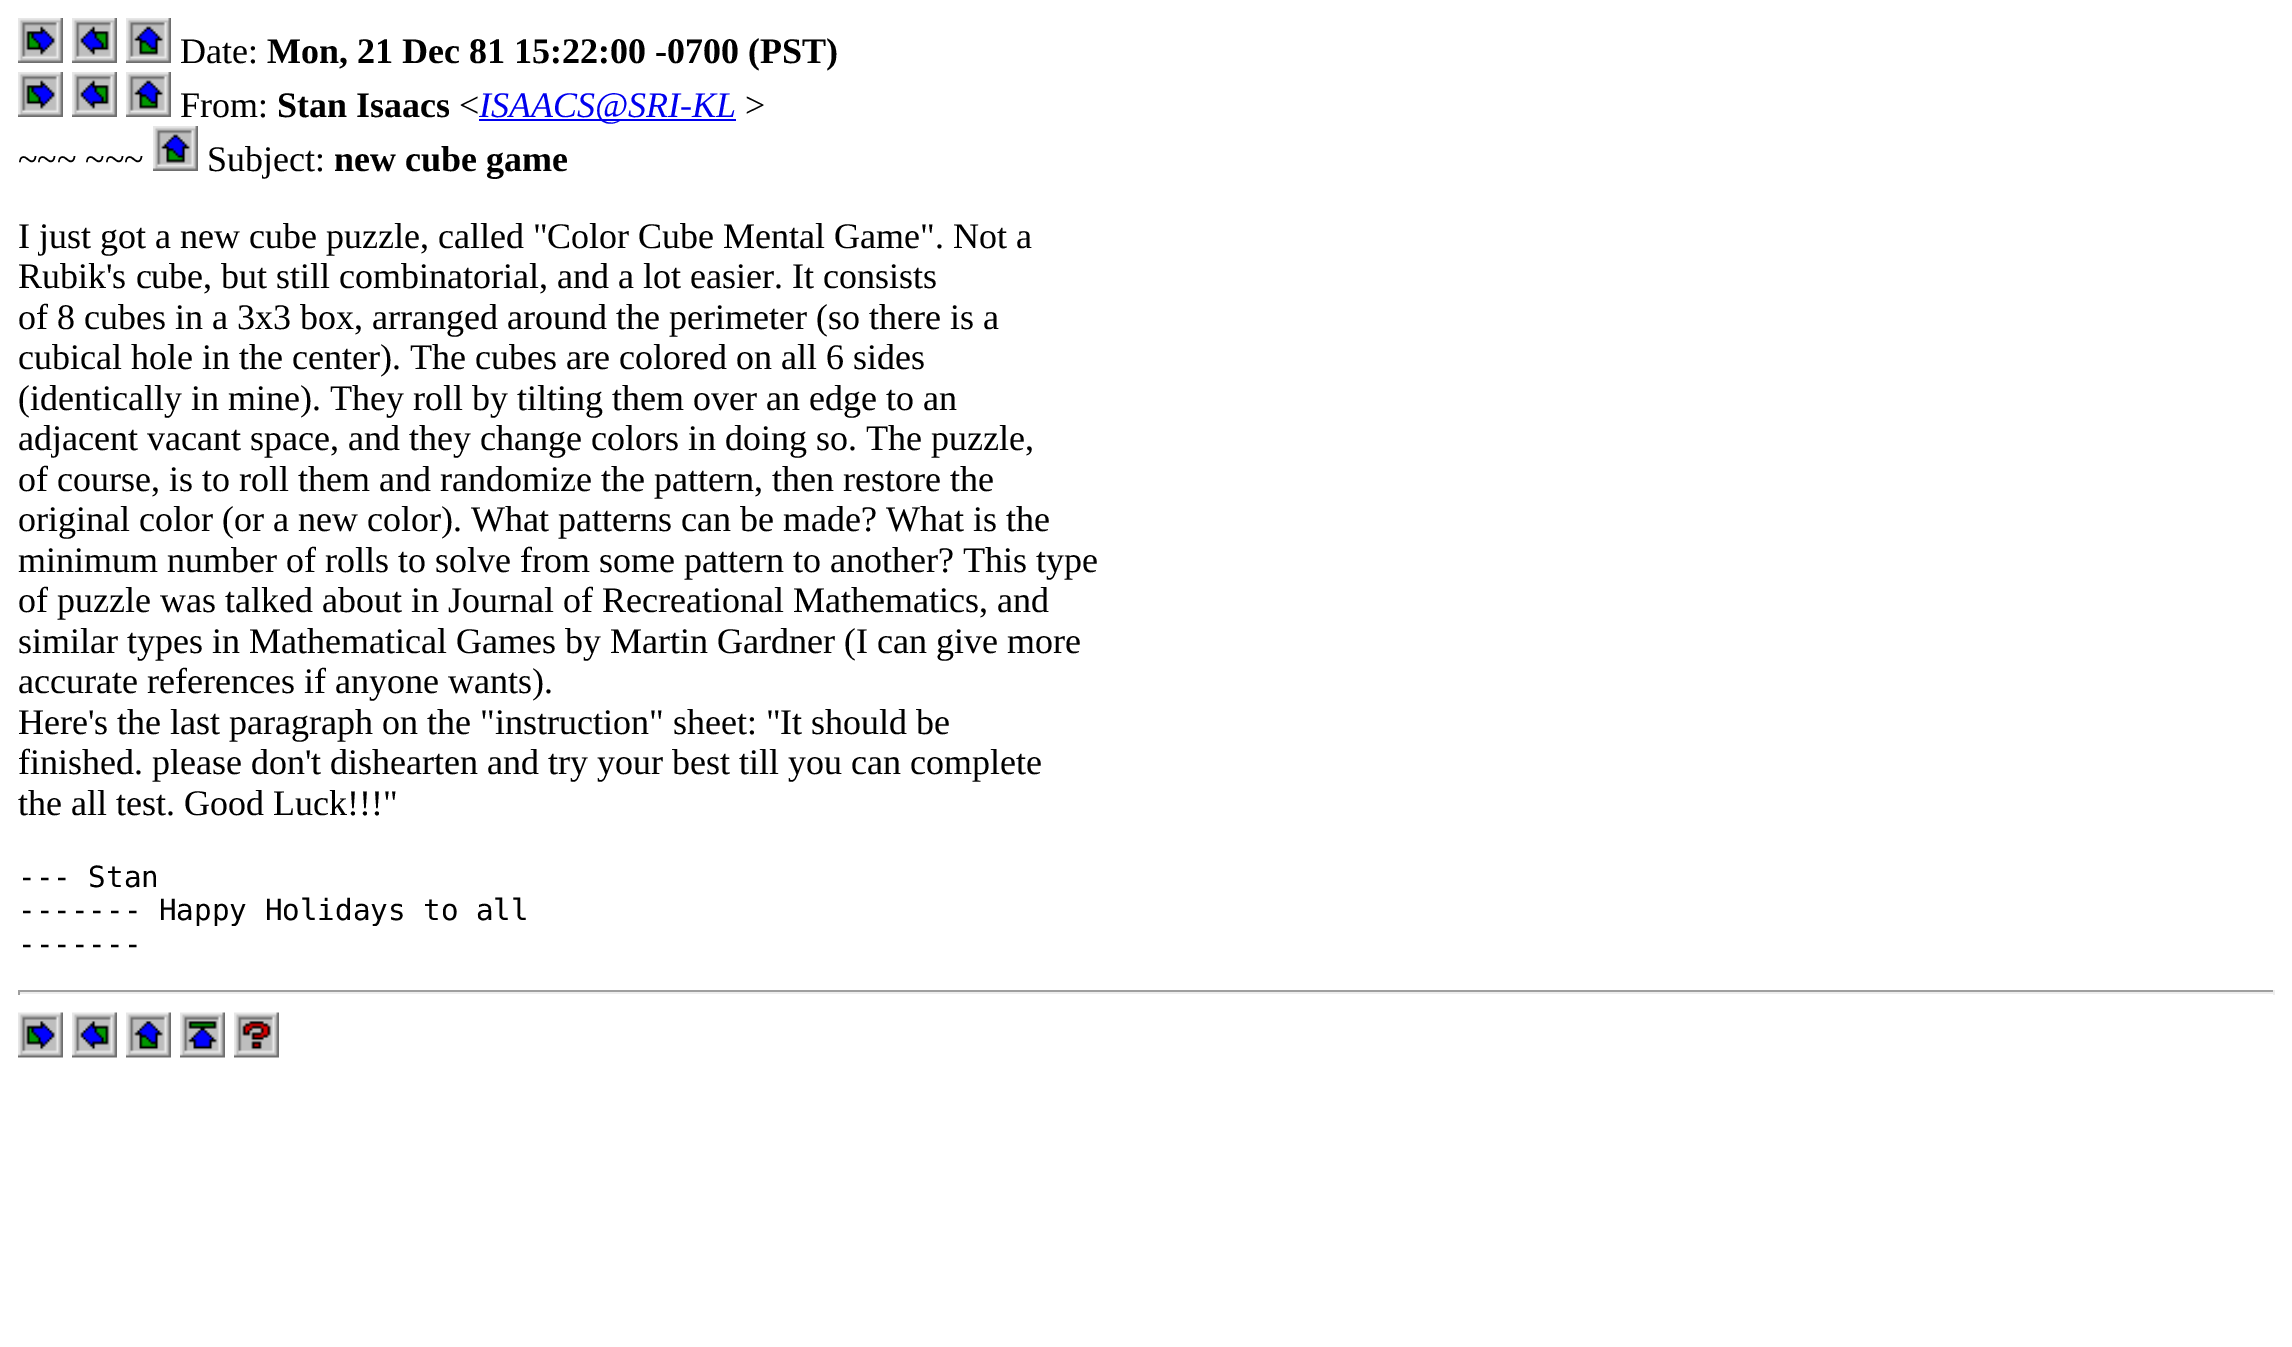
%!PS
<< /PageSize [2292 1347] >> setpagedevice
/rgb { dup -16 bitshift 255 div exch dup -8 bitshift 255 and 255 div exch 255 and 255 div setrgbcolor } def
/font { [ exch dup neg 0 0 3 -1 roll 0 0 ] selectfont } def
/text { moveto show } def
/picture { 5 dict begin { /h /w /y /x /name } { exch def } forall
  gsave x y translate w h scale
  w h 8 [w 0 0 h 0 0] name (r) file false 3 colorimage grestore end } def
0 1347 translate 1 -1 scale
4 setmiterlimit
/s1 { /LiberationSerif-Regular 36 font 16#000000 rgb } def
/s2 { /LiberationSerif-Bold 36 font 16#000000 rgb } def
/s3 { /LiberationSerif-Italic 36 font 16#0000EE rgb } def
/s4 { /DejaVuSansMono-Regular 29.25 font 16#000000 rgb } def
16#FFFFFF rgb
0 0 2292 1347 rectfill
(pic1.raw) 18 18 45 45 picture
(pic2.raw) 72 18 45 45 picture
(pic3.raw) 126 18 45 45 picture
s1
(Date:) 180 63 text
s2
(Mon, 21 Dec 81 15:22:00 -0700 \(PST\)) 267 63 text
(pic1.raw) 18 72 45 45 picture
(pic2.raw) 72 72 45 45 picture
(pic3.raw) 126 72 45 45 picture
s1
(From:) 180 117 text
s2
(Stan Isaacs) 277 117 text
s1
(<) 459 117 text
16#0000EE rgb
479 119 257 2 rectfill
s3
(ISAACS@SRI-KL) 479 117 text
s1
(>) 745 117 text
(~~~ ~~~) 18 171 text
(pic3.raw) 153 126 45 45 picture
(Subject:) 207 171 text
s2
(new cube game) 334 171 text
s1
(I just got a new cube puzzle, called "Color Cube Mental Game". Not a) 18 248 text
(Rubik's cube, but still combinatorial, and a lot easier. It consists) 18 288 text
(of 8 cubes in a 3x3 box, arranged around the perimeter \(so there is a) 18 329 text
(cubical hole in the center\). The cubes are colored on all 6 sides) 18 369 text
(\(identically in mine\). They roll by tilting them over an edge to an) 18 410 text
(adjacent vacant space, and they change colors in doing so. The puzzle,) 18 450 text
(of course, is to roll them and randomize the pattern, then restore the) 18 491 text
(original color \(or a new color\). What patterns can be made? What is the) 18 531 text
(minimum number of rolls to solve from some pattern to another? This type) 18 572 text
(of puzzle was talked about in Journal of Recreational Mathematics, and) 18 612 text
(similar types in Mathematical Games by Martin Gardner \(I can give more) 18 653 text
(accurate references if anyone wants\).) 18 693 text
(Here's the last paragraph on the "instruction" sheet: "It should be) 18 734 text
(finished. please don't dishearten and try your best till you can complete) 18 774 text
(the all test. Good Luck!!!") 18 815 text
s4
(--- Stan) 18 887 text
(------- Happy Holidays to all) 18 920 text
(-------) 18 954 text
16#9F9F9F rgb
18 990 2257 2 rectfill
16#EEEEEE rgb
2273 990 2 5 rectfill
18 992 2257 2 rectfill
16#9F9F9F rgb
18 990 2 5 rectfill
(pic4.raw) 18 1012 45 46 picture
(pic5.raw) 72 1012 45 46 picture
(pic6.raw) 126 1012 45 46 picture
(pic7.raw) 180 1012 45 46 picture
(pic8.raw) 234 1012 45 46 picture
showpage
